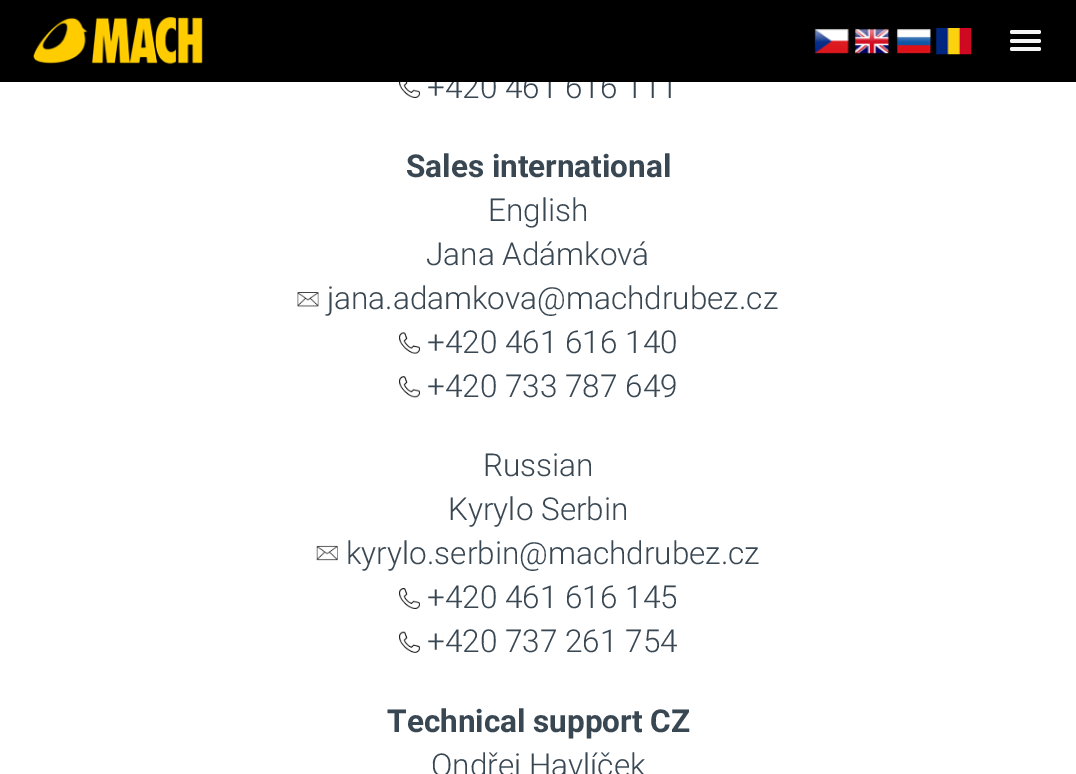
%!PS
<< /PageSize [1076 774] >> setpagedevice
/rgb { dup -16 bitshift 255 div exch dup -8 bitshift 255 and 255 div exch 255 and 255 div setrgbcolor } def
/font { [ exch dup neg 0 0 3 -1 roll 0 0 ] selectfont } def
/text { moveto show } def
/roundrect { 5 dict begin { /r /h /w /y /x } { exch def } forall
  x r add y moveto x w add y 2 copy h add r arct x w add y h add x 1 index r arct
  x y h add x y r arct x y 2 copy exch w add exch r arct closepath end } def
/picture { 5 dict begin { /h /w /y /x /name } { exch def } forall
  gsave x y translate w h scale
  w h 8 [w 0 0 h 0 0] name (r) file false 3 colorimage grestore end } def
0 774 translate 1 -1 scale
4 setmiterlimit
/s1 { /Roboto-Light 31.5 font 16#394753 rgb } def
/s2 { /Roboto-Bold 31.5 font 16#394753 rgb } def
16#FFFFFF rgb
0 0 1076 774 rectfill
s1
(+420 461 616 111) 427 98 text
16#000000 rgb
0 0 1076 82 rectfill
16#F5F5F5 rgb
1010 30 31 4 2 roundrect fill
1010 39 31 4 2 roundrect fill
1010 47 31 4 2 roundrect fill
(pic1.raw) 33 16 170 49 picture
(pic2.raw) 814 28 35 26 picture
(pic3.raw) 854 28 35 26 picture
(pic4.raw) 896 28 35 26 picture
(pic5.raw) 936 28 36 27 picture
(pic6.raw) 399 82 21 16 picture
s2
(Sales international) 406 177 text
s1
(English) 488 221 text
(Jana Adámková) 426 265 text
(pic7.raw) 297 292 22 15 picture
(jana.adamkova@machdrubez.cz) 327 309 text
(pic8.raw) 399 332 21 22 picture
(+420 461 616 140) 427 353 text
(pic9.raw) 399 376 21 22 picture
(+420 733 787 649) 427 397 text
(Russian) 483 476 text
(Kyrylo Serbin) 448 520 text
(pic10.raw) 316 545 22 16 picture
(kyrylo.serbin@machdrubez.cz) 346 564 text
(pic11.raw) 399 588 21 21 picture
(+420 461 616 145) 427 608 text
(pic12.raw) 399 631 21 22 picture
(+420 737 261 754) 427 652 text
s2
(Technical support CZ) 387 732 text
s1
(Ondřej Havlíček) 431 776 text
showpage
